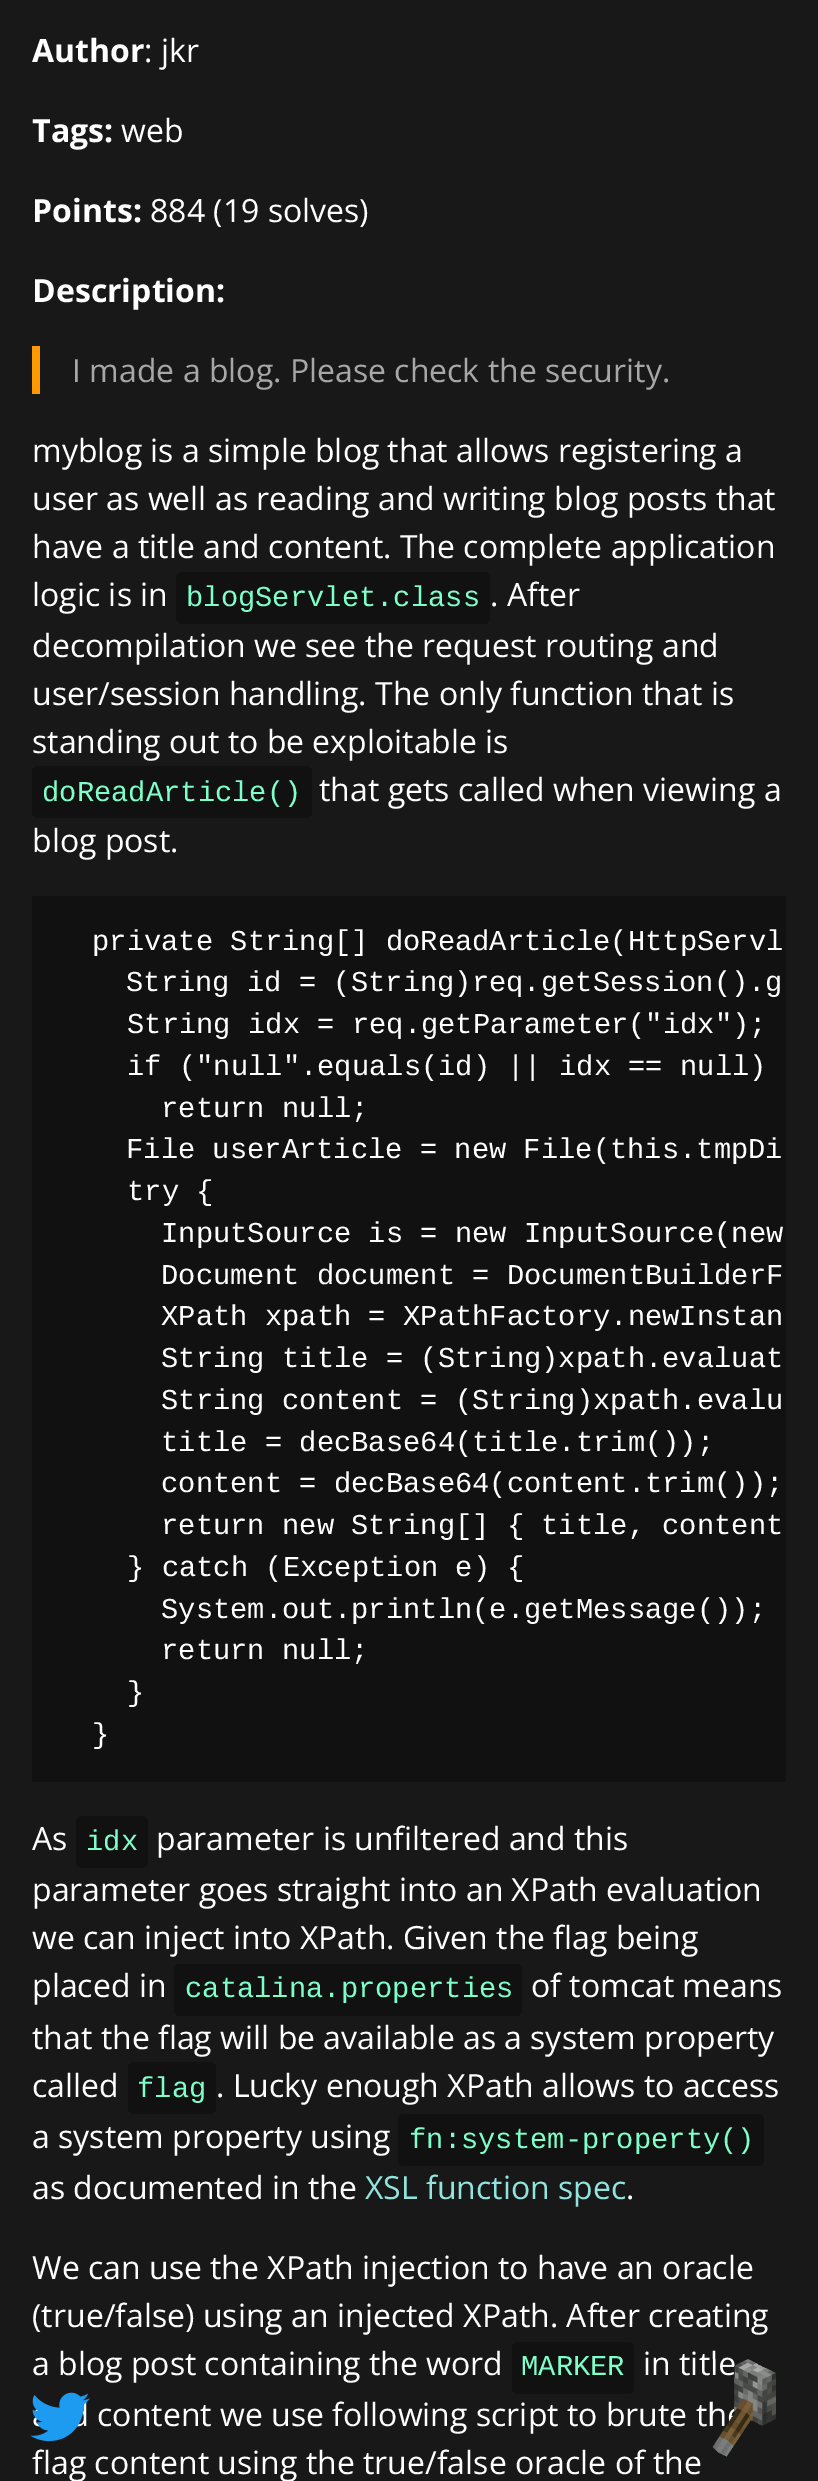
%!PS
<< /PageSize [818 2481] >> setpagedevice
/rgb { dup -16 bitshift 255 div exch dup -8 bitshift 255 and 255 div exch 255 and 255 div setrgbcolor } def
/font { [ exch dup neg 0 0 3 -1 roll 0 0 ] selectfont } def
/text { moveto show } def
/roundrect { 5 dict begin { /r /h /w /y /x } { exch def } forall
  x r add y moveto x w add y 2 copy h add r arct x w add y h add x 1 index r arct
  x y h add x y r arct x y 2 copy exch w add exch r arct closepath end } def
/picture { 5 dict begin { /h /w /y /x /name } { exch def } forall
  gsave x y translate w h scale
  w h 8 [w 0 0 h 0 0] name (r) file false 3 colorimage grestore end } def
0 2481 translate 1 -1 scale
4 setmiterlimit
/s1 { /OpenSans-Bold 32 font 16#FFFFFF rgb } def
/s2 { /OpenSans-Regular 32 font 16#FFFFFF rgb } def
/s3 { /OpenSans-Regular 32 font 16#A7A7A7 rgb } def
/s4 { /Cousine-Regular 28.8 font 16#7EFFCA rgb } def
/s5 { /Cousine-Regular 28.8 font 16#FFFFFF rgb } def
/s6 { /OpenSans-Regular 32 font 16#91E4DD rgb } def
16#181818 rgb
0 0 818 2481 rectfill
s1
(Author) 32 62 text
s2
(: jkr) 144 62 text
s1
(Tags:) 32 142 text
s2
(web) 121 142 text
s1
(Points:) 32 222 text
s2
(884 \(19 solves\)) 150 222 text
s1
(Description:) 32 302 text
16#FF9900 rgb
32 346 8 48 rectfill
s3
(I made a blog. Please check the security.) 72 382 text
s2
(myblog is a simple blog that allows registering a) 32 462 text
(user as well as reading and writing blog posts that) 32 510 text
(have a title and content. The complete application) 32 558 text
(logic is in) 32 606 text
16#111111 rgb
176 572 314 52 6 roundrect fill
s4
(blogServlet.class) 186 606 text
s2
(. After) 490 606 text
(decompilation we see the request routing and) 32 657 text
(user/session handling. The only function that is) 32 705 text
(standing out to be exploitable is) 32 753 text
16#111111 rgb
32 766 280 52 6 roundrect fill
s4
(doReadArticle\(\)) 42 801 text
s2
(that gets called when viewing a) 319 801 text
(blog post.) 32 852 text
16#111111 rgb
32 896 754 886 rectfill
s5
(private String[] doReadArticle\(HttpServl) 92 950 text
(String id = \(String\)req.getSession\(\).g) 126 991 text
(String idx = req.getParameter\("idx"\);) 127 1033 text
(if \("null".equals\(id\) || idx == null\)) 127 1075 text
(return null;) 161 1117 text
(File userArticle = new File\(this.tmpDi) 126 1158 text
(try {) 127 1200 text
(InputSource is = new InputSource\(new) 161 1242 text
(Document document = DocumentBuilderF) 161 1284 text
(XPath xpath = XPathFactory.newInstan) 161 1325 text
(String title = \(String\)xpath.evaluat) 161 1367 text
(String content = \(String\)xpath.evalu) 161 1409 text
(title = decBase64\(title.trim\(\)\);) 161 1451 text
(content = decBase64\(content.trim\(\)\);) 161 1492 text
(return new String[] { title, content) 161 1534 text
(} catch \(Exception e\) {) 127 1576 text
(System.out.println\(e.getMessage\(\)\);) 161 1618 text
(return null;) 161 1659 text
(}) 127 1701 text
(}) 92 1743 text
s2
(As) 32 1850 text
16#111111 rgb
76 1816 72 52 6 roundrect fill
s4
(idx) 86 1850 text
s2
(parameter is unfiltered and this) 156 1850 text
(parameter goes straight into an XPath evaluation) 32 1901 text
(we can inject into XPath. Given the flag being) 32 1949 text
(placed in) 32 1997 text
16#111111 rgb
174 1964 348 52 6 roundrect fill
s4
(catalina.properties) 185 1997 text
s2
(of tomcat means) 531 1997 text
(that the flag will be available as a system property) 32 2049 text
(called) 32 2097 text
16#111111 rgb
128 2062 88 52 6 roundrect fill
s4
(flag) 137 2097 text
s2
(. Lucky enough XPath allows to access) 216 2097 text
(a system property using) 32 2148 text
16#111111 rgb
398 2114 366 52 6 roundrect fill
s4
(fn:system-property\(\)) 409 2148 text
s2
(as documented in the) 32 2199 text
s6
(XSL function spec) 365 2199 text
s2
(.) 626 2199 text
(We can use the XPath injection to have an oracle) 32 2279 text
(\(true/false\) using an injected XPath. After creating) 32 2327 text
(a blog post containing the word) 32 2375 text
16#111111 rgb
512 2342 122 52 6 roundrect fill
s4
(MARKER) 521 2375 text
s2
(in title) 643 2375 text
(content we use following script to brute th) 97 2426 text
(flag content using the true/false oracle of the) 32 2474 text
(pic1.raw) 30 2392 60 50 picture
(pic2.raw) 712 2359 64 98 picture
showpage
